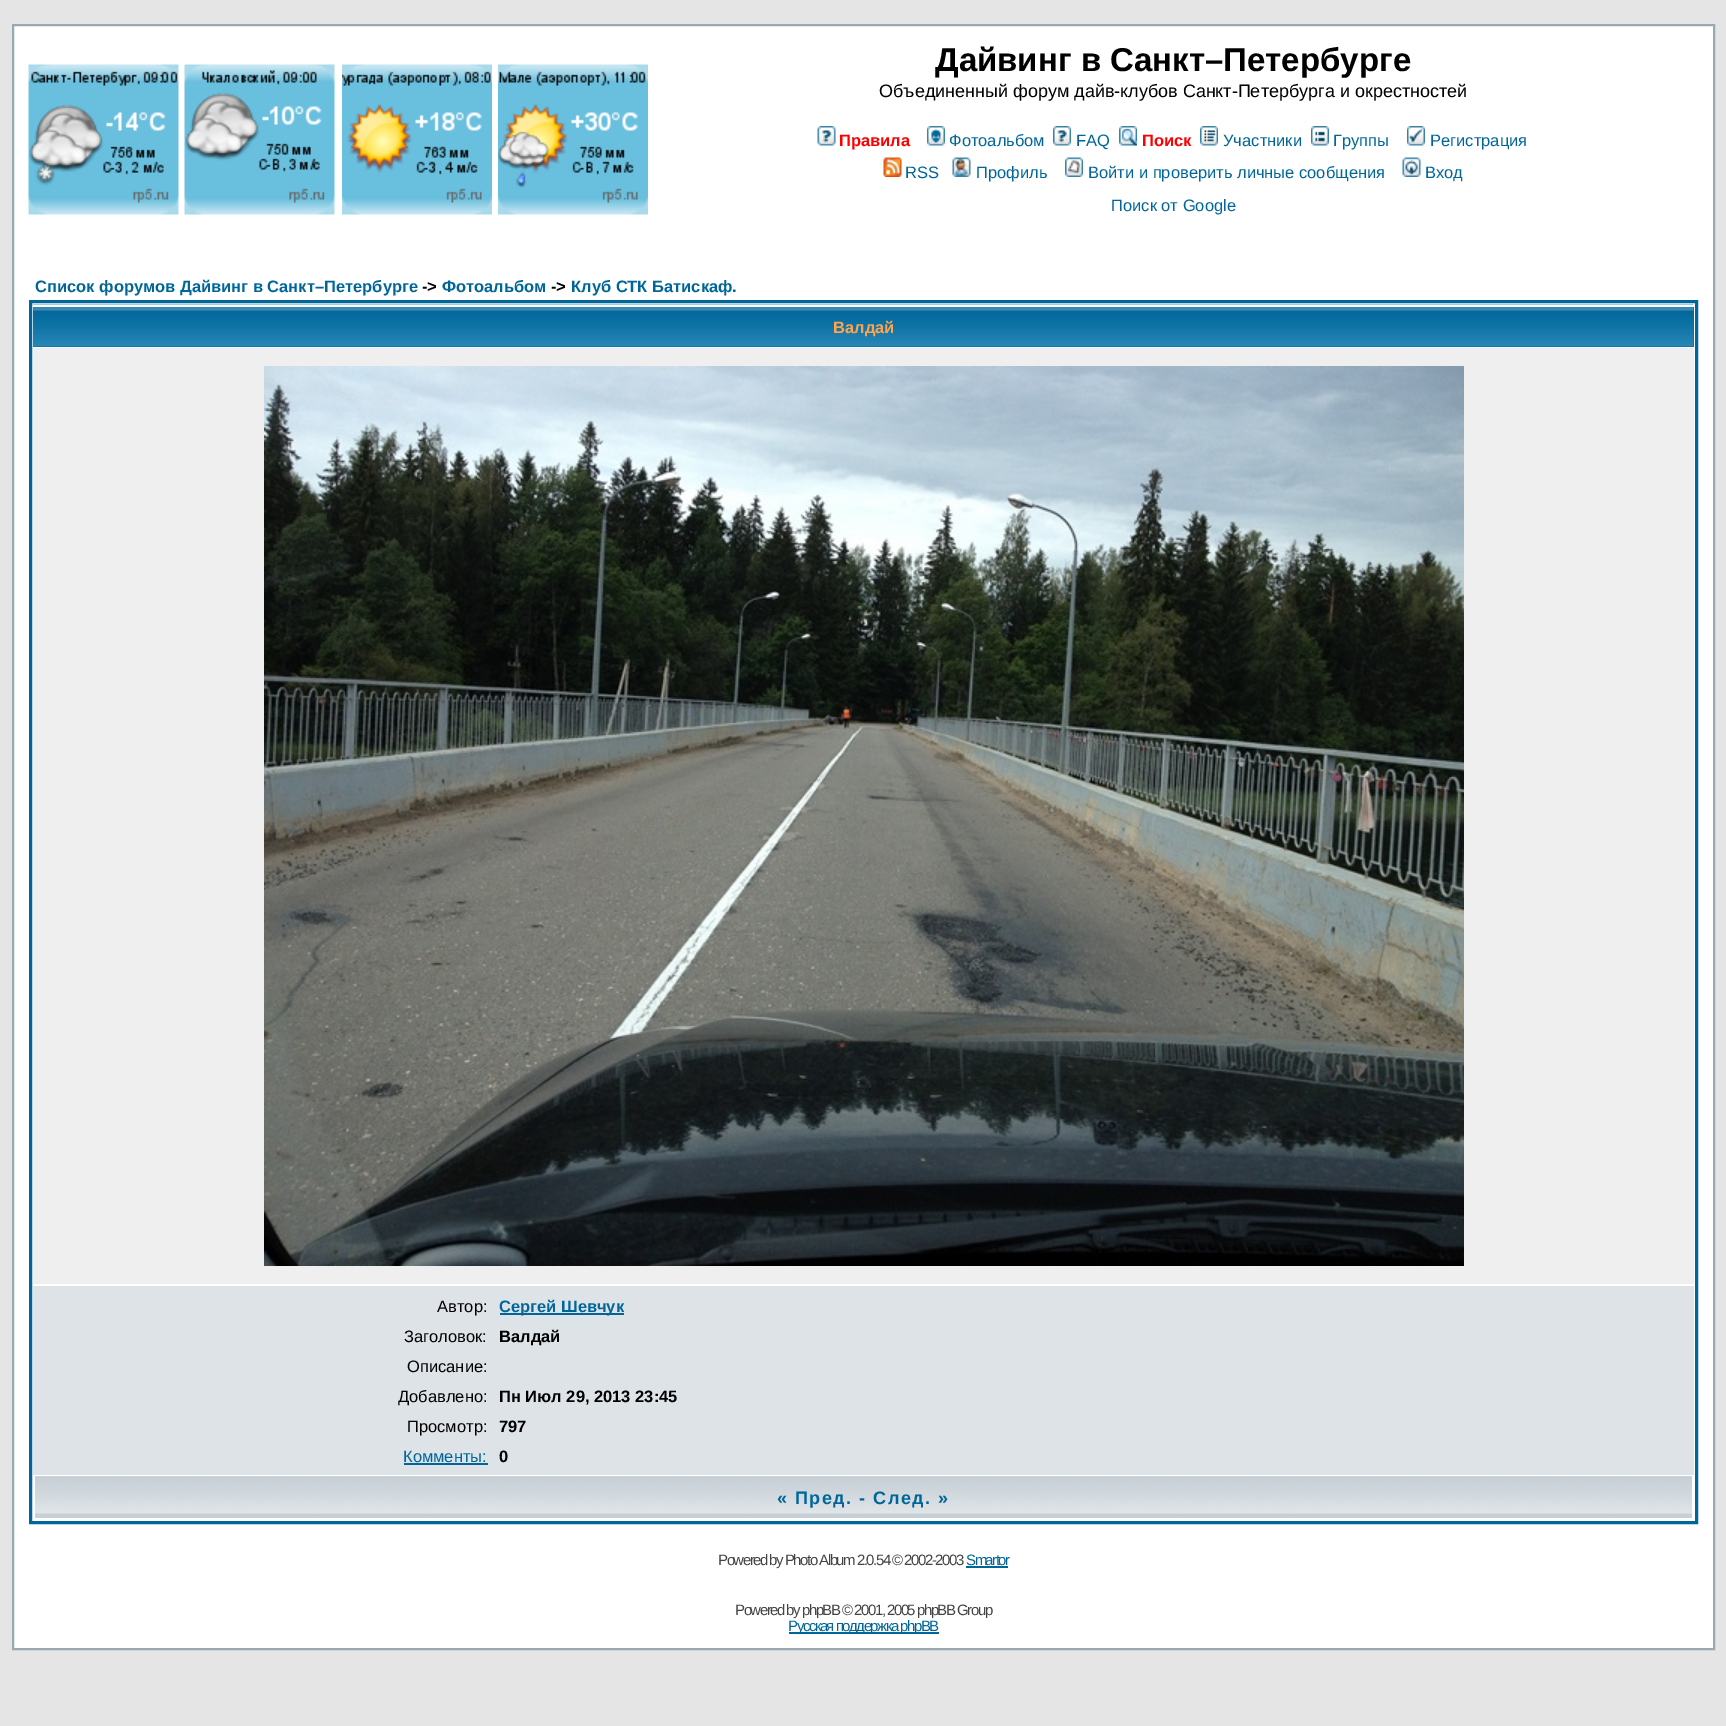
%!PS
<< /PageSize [1726 1726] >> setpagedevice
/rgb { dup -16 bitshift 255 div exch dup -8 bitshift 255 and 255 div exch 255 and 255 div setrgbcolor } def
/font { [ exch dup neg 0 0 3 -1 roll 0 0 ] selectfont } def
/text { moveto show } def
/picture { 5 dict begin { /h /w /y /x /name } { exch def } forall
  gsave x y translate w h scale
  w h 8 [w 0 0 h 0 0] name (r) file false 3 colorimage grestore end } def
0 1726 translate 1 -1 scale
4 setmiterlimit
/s1 { /LiberationSans-Bold 33 font 16#000000 rgb } def
/s2 { /LiberationSans-Regular 18 font 16#000000 rgb } def
/s3 { /LiberationSans-Bold 16.5 font 16#FF0000 rgb } def
/s4 { /LiberationSans-Regular 16.5 font 16#006699 rgb } def
/s5 { /LiberationSans-Bold 16.5 font 16#006699 rgb } def
/s6 { /LiberationSans-Bold 16.5 font 16#000000 rgb } def
/s7 { /LiberationSans-Bold 16.5 font 16#FFA34F rgb } def
/s8 { /LiberationSans-Regular 16.5 font 16#000000 rgb } def
16#E5E5E5 rgb
0 0 1726 1726 rectfill
16#FFFFFF rgb
13 25 moveto 1714 25 lineto 1714 1649 lineto 13 1649 lineto closepath gsave fill grestore
16#98AAB1 rgb
2 setlinewidth
stroke
(pic1.raw) 28 64 151 151 picture
(pic2.raw) 184 64 151 151 picture
(pic3.raw) 342 64 150 151 picture
(pic4.raw) 498 64 150 151 picture
s1
(Дайвинг в Санкт–Петербурге) 935 71 text
s2
(Объединенный форум дайв-клубов Санкт-Петербурга и окрестностей) 879 97 text
(pic5.raw) 817 126 19 20 picture
s3
(Правила) 839 146 text
(pic6.raw) 927 126 18 20 picture
s4
(Фотоальбом) 949 146 text
(pic7.raw) 1053 126 18 20 picture
(FAQ) 1076 146 text
(pic8.raw) 1119 126 18 20 picture
s3
(Поиск) 1142 146 text
(pic9.raw) 1200 126 18 20 picture
s4
(Участники) 1223 146 text
(pic10.raw) 1311 126 18 20 picture
(Группы) 1333 146 text
(pic11.raw) 1407 126 18 20 picture
(Регистрация) 1430 146 text
(pic12.raw) 883 157 19 20 picture
(RSS) 905 178 text
(pic13.raw) 952 157 19 20 picture
(Профиль) 976 178 text
(pic14.raw) 1065 157 18 20 picture
(Войти и проверить личные сообщения) 1088 178 text
(pic15.raw) 1402 157 19 20 picture
(Вход) 1425 178 text
(Поиск от Google) 1111 211 text
s5
(Список форумов Дайвинг в Санкт–Петербурге) 35 292 text
s6
(->) 422 292 text
s5
(Фотоальбом) 442 292 text
s6
(->) 551 292 text
s5
(Клуб СТК Батискаф.) 571 292 text
3 setlinewidth
30.5 301.5 1666 1221 rectstroke
33 307 1661 40 rectfill
(pic16.raw) 33 304 1661 43 picture
16#FFFFFF rgb
33 305 1661 2 rectfill
s7
(Валдай) 833 333 text
16#EFEFEF rgb
33 348 1661 936 rectfill
(pic17.raw) 264 366 1200 900 picture
16#DEE3E7 rgb
33 1286 1661 189 rectfill
s8
(Автор:) 437 1312 text
16#006699 rgb
500 1313 124 2 rectfill
s5
(Сергей Шевчук) 499 1312 text
s8
(Заголовок:) 404 1342 text
s6
(Валдай) 499 1342 text
s8
(Описание:) 407 1372 text
(Добавлено:) 398 1402 text
s6
(Пн Июл 29, 2013 23:45) 499 1402 text
s8
(Просмотр:) 407 1432 text
s6
(797) 499 1432 text
s4
(Комменты:) 403 1462 text
404 1463 84 2 rectfill
s6
(0) 499 1462 text
(pic18.raw) 35 1476 1657 42 picture
/LiberationSans-Bold 18 font
16#006699 rgb
777 1504 moveto 1.5 0 (« Пред. - След. ») ashow
/LiberationSans-Regular 15 font
16#444444 rgb
718 1565 moveto -1.5 0 (Powered by Photo Album 2.0.54 © 2002-2003) ashow
16#006699 rgb
966 1565 moveto -1.5 0 (Smartor) ashow
966 1566 42 2 rectfill
16#444444 rgb
735 1615 moveto -1.5 0 (Powered by phpBB © 2001, 2005 phpBB Group) ashow
16#006699 rgb
789 1632 150 2 rectfill
788 1631 moveto -1.5 0 (Русская поддержка phpBB) ashow
showpage
